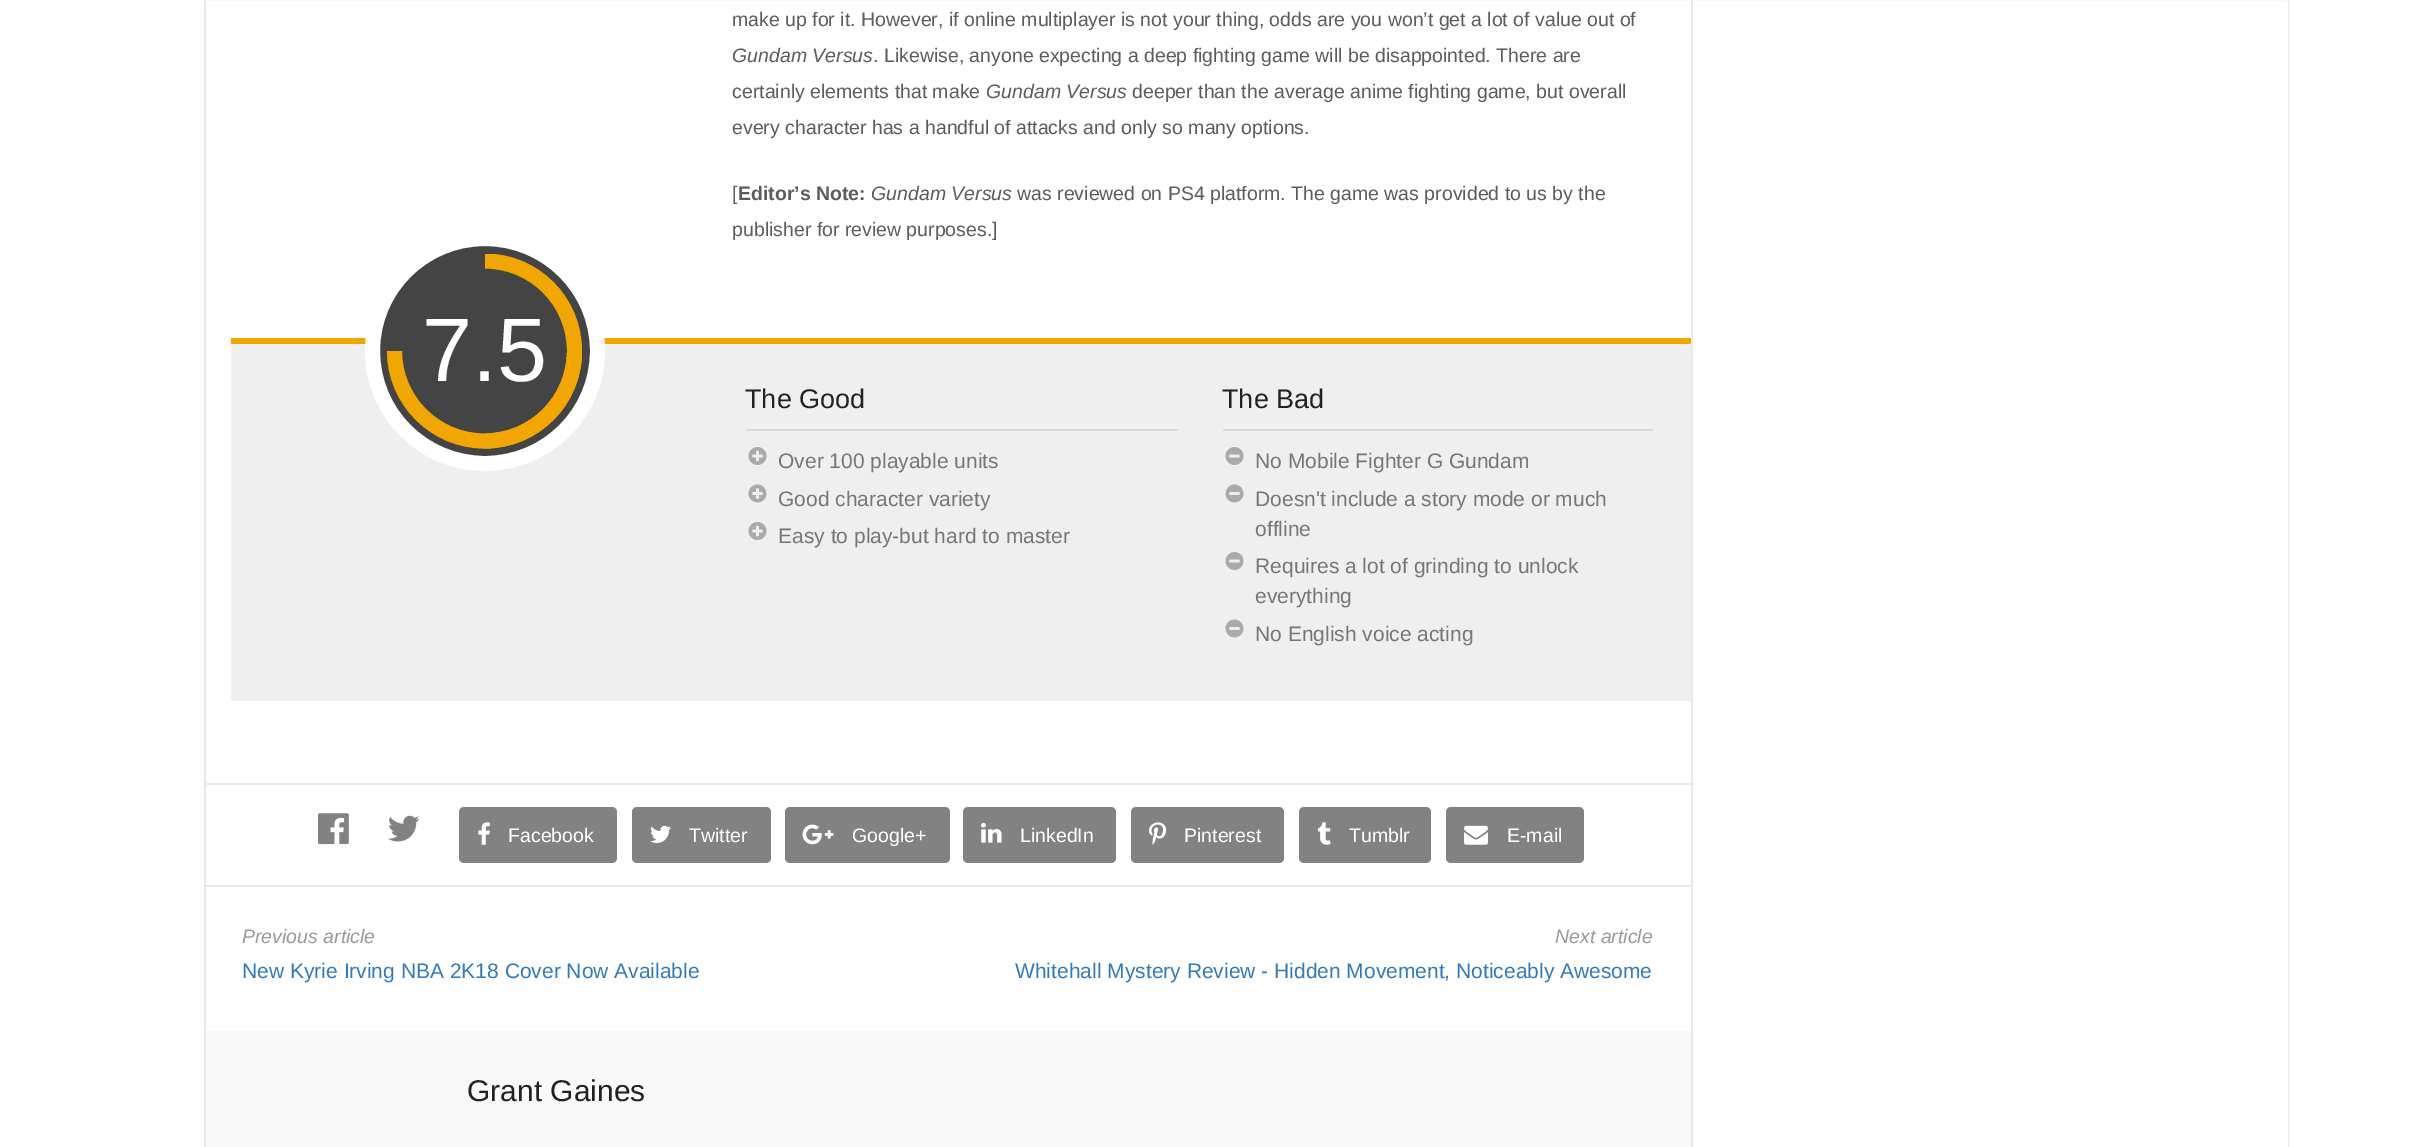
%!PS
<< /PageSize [2416 1147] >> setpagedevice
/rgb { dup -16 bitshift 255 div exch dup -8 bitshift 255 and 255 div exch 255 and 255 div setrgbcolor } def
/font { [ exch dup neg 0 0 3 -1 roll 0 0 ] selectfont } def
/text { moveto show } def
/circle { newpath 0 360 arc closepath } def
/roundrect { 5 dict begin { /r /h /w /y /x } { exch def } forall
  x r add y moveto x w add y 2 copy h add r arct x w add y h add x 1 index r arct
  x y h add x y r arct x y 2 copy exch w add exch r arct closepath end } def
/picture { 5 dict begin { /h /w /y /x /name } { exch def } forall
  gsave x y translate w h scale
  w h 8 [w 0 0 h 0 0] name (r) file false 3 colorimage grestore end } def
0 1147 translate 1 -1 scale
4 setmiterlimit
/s1 { /LiberationSans-Regular 19.5 font 16#5C5C5C rgb } def
/s2 { /LiberationSans-Italic 19.5 font 16#5C5C5C rgb } def
/s3 { /LiberationSans-Bold 19.5 font 16#5C5C5C rgb } def
/s4 { /LiberationSans-Regular 90 font 16#FFFFFF rgb } def
/s5 { /LiberationSans-Regular 27 font 16#222222 rgb } def
/s6 { /LiberationSans-Regular 21 font 16#777777 rgb } def
/s7 { /LiberationSans-Regular 19.5 font 16#FFFFFF rgb } def
/s8 { /LiberationSans-Italic 19.5 font 16#999999 rgb } def
/s9 { /LiberationSans-Regular 21 font 16#337AB7 rgb } def
/s10 { /LiberationSans-Regular 30 font 16#222222 rgb } def
16#FFFFFF rgb
0 0 2416 1147 rectfill
16#E9E9E9 rgb
2 setlinewidth
205 -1 2083 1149 rectstroke
s1
(make up for it. However, if online multiplayer is not your thing, odds are you won’t get a lot of value out of) 732 26 text
s2
(Gundam Versus) 732 62 text
s1
(. Likewise, anyone expecting a deep fighting game will be disappointed. There are) 873 62 text
(certainly elements that make) 732 98 text
s2
(Gundam Versus) 986 98 text
s1
(deeper than the average anime fighting game, but overall) 1132 98 text
(every character has a handful of attacks and only so many options.) 732 134 text
([) 732 200 text
s3
(Editor’s Note:) 738 200 text
s2
(Gundam Versus) 871 200 text
s1
(was reviewed on PS4 platform. The game was provided to us by the) 1017 200 text
(publisher for review purposes.]) 732 236 text
16#EFEFEF rgb
231 344 1460 357 rectfill
16#F1A602 rgb
231 338 1460 6 rectfill
16#444444 rgb
485 351 112.5 circle gsave fill grestore
16#FFFFFF rgb
15 setlinewidth
stroke
gsave
387 448.5 moveto 387 351 lineto 582 351 lineto 582 448.5 lineto closepath clip newpath
16#F1A602 rgb
394.5 351 moveto 394.5 301.5 435 261 484.5 261 curveto 534.5 261 574.5 301.5 574.5 351 curveto 574.5 400.5 534.5 441 484.5 441 curveto 435 441 394.5 400.5 394.5 351 curveto closepath stroke
grestore
gsave
485 254 97 195 rectclip
16#F1A602 rgb
484.5 441 moveto 435 441 394.5 400.5 394.5 351 curveto 394.5 301.5 435 261 484.5 261 curveto 534.5 261 574.5 301.5 574.5 351 curveto 574.5 400.5 534.5 441 484.5 441 curveto closepath stroke
grestore
s4
(7.5) 422 381 text
16#DADADA rgb
746 429 432 2 rectfill
s5
(The Good) 745 408 text
(pic1.raw) 748 447 19 18 picture
s6
(Over 100 playable units) 778 468 text
(pic2.raw) 748 484 19 19 picture
(Good character variety) 778 506 text
(pic1.raw) 748 522 19 18 picture
(Easy to play-but hard to master) 778 543 text
16#DADADA rgb
1223 429 430 2 rectfill
s5
(The Bad) 1222 408 text
(pic3.raw) 1225 447 19 18 picture
s6
(No Mobile Fighter G Gundam) 1255 468 text
(pic4.raw) 1225 484 19 19 picture
(Doesn't include a story mode or much) 1255 506 text
(offline) 1255 536 text
(pic3.raw) 1225 552 19 18 picture
(Requires a lot of grinding to unlock) 1255 573 text
(everything) 1255 603 text
(pic4.raw) 1225 619 19 19 picture
(No English voice acting) 1255 641 text
16#E9E9E9 rgb
206 783 1485 2 rectfill
206 885 1485 2 rectfill
(pic5.raw) 318 813 31 32 picture
(pic6.raw) 388 815 32 27 picture
16#828282 rgb
459 807 158 56 5 roundrect fill
(pic7.raw) 478 822 12 23 picture
s7
(Facebook) 508 842 text
16#828282 rgb
632 807 139 56 5 roundrect fill
(pic8.raw) 650 825 21 18 picture
s7
(Twitter) 689 842 text
16#828282 rgb
785 807 165 56 5 roundrect fill
(pic9.raw) 802 824 32 21 picture
s7
(Google+) 852 842 text
16#828282 rgb
963 807 153 56 5 roundrect fill
(pic10.raw) 981 822 21 21 picture
s7
(LinkedIn) 1020 842 text
16#828282 rgb
1131 807 153 56 5 roundrect fill
(pic11.raw) 1149 822 18 23 picture
s7
(Pinterest) 1184 842 text
16#828282 rgb
1299 807 132 56 5 roundrect fill
(pic12.raw) 1317 822 14 23 picture
s7
(Tumblr) 1349 842 text
16#828282 rgb
1446 807 138 56 5 roundrect fill
(pic13.raw) 1464 825 24 20 picture
s7
(E-mail) 1507 842 text
s8
(Previous article) 242 943 text
s9
(New Kyrie Irving NBA 2K18 Cover Now Available) 242 978 text
s8
(Next article) 1555 943 text
s9
(Whitehall Mystery Review - Hidden Movement, Noticeably Awesome) 1015 978 text
16#F9F9F9 rgb
206 1031 1485 116 rectfill
s10
(Grant Gaines) 467 1101 text
16#FFFFFF rgb
2287 0 1 1147 rectfill
16#E9E9E9 rgb
1691 0 2 1147 rectfill
showpage
